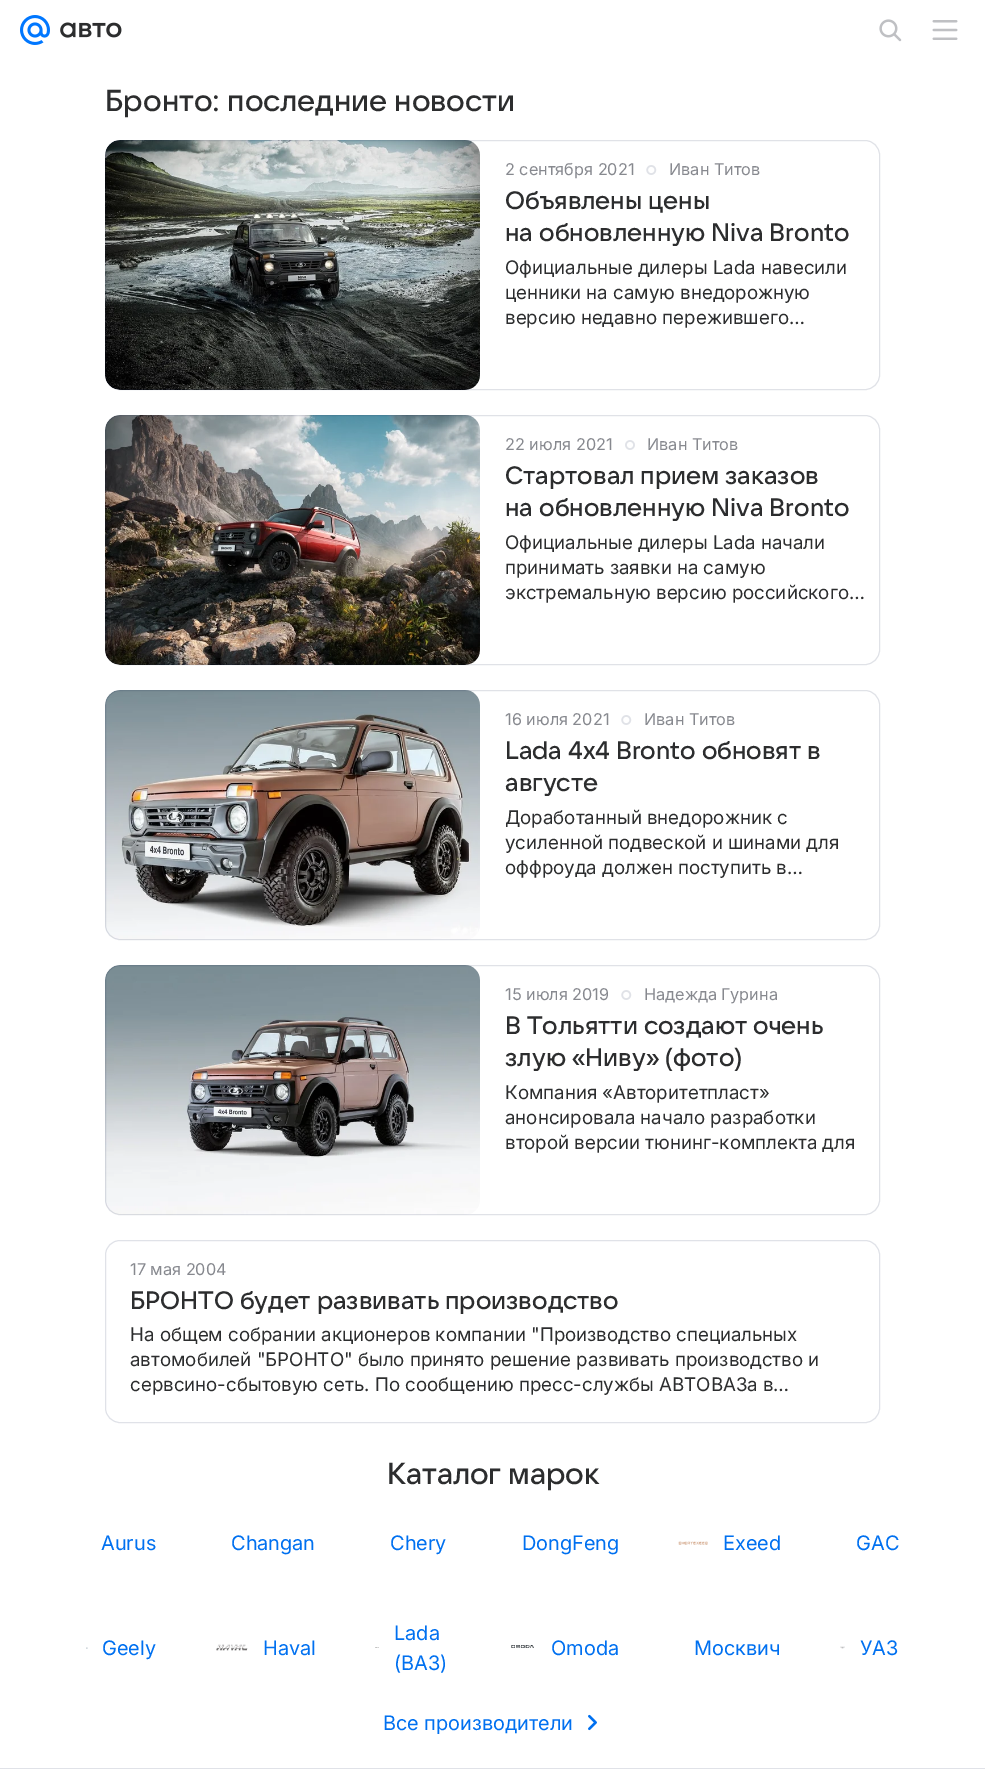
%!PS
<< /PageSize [985 1792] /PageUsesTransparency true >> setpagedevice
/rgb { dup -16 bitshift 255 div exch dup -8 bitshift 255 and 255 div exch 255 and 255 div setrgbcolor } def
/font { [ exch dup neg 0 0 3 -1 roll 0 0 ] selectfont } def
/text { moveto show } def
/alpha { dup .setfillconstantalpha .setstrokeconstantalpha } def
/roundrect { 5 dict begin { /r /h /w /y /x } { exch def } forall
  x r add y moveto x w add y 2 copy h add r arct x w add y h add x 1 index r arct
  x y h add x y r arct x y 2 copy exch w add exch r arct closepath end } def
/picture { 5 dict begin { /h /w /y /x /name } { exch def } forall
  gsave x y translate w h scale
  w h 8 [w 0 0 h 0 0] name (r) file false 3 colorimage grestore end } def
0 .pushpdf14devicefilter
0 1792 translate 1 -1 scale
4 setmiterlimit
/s1 { /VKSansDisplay-Medium 30 font 16#2C2D2E rgb } def
/s2 { /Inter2-Regular 16.25 font 16#87898F rgb } def
/s3 { /VKSansDisplay-Medium 25 font 16#2C2D2E rgb } def
/s4 { /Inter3-Regular 18.75 font 16#2C2D2E rgb } def
/s5 { /Inter-Regular 20 font 16#0070F0 rgb } def
16#FFFFFF rgb
0 0 985 1792 rectfill
(pic1.raw) 20 15 30 30 picture
(pic2.raw) 60 22 62 16 picture
(pic3.raw) 879 19 23 23 picture
(pic4.raw) 932 20 26 20 picture
s1
(Бронто: последние новости) 105 111 text
(pic5.raw) 105 140 375 250 picture
(pic6.raw) 646 165 11 10 picture
0.12 alpha
16#00103D rgb
105.5 140.5 774 249 14.5 roundrect stroke
1 alpha
s2
(2 сентября 2021) 505 175 text
(Иван Титов) 669 175 text
s3
(Объявлены цены) 505 209 text
(на обновленную Niva Bronto) 505 241 text
s4
(Официальные дилеры Lada навесили) 505 274 text
(ценники на самую внедорожную) 505 299 text
(версию недавно пережившего…) 505 324 text
(pic7.raw) 105 415 375 250 picture
(pic8.raw) 625 440 10 10 picture
0.12 alpha
16#00103D rgb
105.5 415.5 774 249 14.5 roundrect stroke
1 alpha
s2
(22 июля 2021) 505 450 text
(Иван Титов) 647 450 text
s3
(Стартовал прием заказов) 505 484 text
(на обновленную Niva Bronto) 505 516 text
s4
(Официальные дилеры Lada начали) 505 549 text
(принимать заявки на самую) 505 574 text
(экстремальную версию российского…) 505 599 text
(pic9.raw) 105 690 375 250 picture
(pic6.raw) 621 715 11 10 picture
0.12 alpha
16#00103D rgb
105.5 690.5 774 249 14.5 roundrect stroke
1 alpha
s2
(16 июля 2021) 505 725 text
(Иван Титов) 644 725 text
s3
(Lada 4x4 Bronto обновят в) 505 759 text
(августе) 505 791 text
s4
(Доработанный внедорожник с) 505 824 text
(усиленной подвеской и шинами для) 505 849 text
(оффроуда должен поступить в…) 505 874 text
(pic10.raw) 105 965 375 250 picture
(pic6.raw) 621 990 11 10 picture
0.12 alpha
16#00103D rgb
105.5 965.5 774 249 14.5 roundrect stroke
1 alpha
s2
(15 июля 2019) 505 1000 text
644 1000 moveto -1 0 32 (Надежда Гурина) widthshow
s3
(В Тольятти создают очень) 505 1034 text
(злую «Ниву» \(фото\)) 505 1066 text
s4
(Компания «Авторитетпласт») 505 1099 text
(анонсировала начало разработки) 505 1124 text
(второй версии тюнинг-комплекта для) 505 1149 text
16#E0E2E8 rgb
105.5 1240.5 774 182 14.5 roundrect stroke
s2
(17 мая 2004) 130 1275 text
s3
(БРОНТО будет развивать производство) 130 1309 text
s4
(На общем собрании акционеров компании "Производство специальных) 130 1341 text
(автомобилей "БРОНТО" было принято решение развивать производство и) 130 1366 text
(сервсино-сбытовую сеть. По сообщению пресс-службы АВТОВАЗа в…) 130 1391 text
/VKSansDisplay-Medium 30 font
387 1484 moveto -0.1 0 (Каталог марок) ashow
s5
(Aurus) 101 1550 text
(Changan) 231 1550 text
(Chery) 390 1550 text
(DongFeng) 522 1550 text
(pic11.raw) 678 1541 30 4 picture
(Exeed) 723 1550 text
(GAC) 856 1550 text
(pic12.raw) 86 1647 2 2 picture
(Geely) 102 1655 text
(pic13.raw) 216 1644 32 7 picture
(Haval) 263 1655 text
(pic14.raw) 375 1647 4 1 picture
(Lada) 394 1640 text
(\(ВАЗ\)) 394 1670 text
(pic15.raw) 511 1645 23 3 picture
(Omoda) 551 1655 text
(Москвич) 694 1655 text
(pic16.raw) 840 1646 5 3 picture
(УАЗ) 860 1655 text
(Все производители) 383 1730 text
(pic17.raw) 588 1714 9 17 picture
16#E0E2E8 rgb
0 1768 985 1 rectfill
.poppdf14devicefilter showpage
